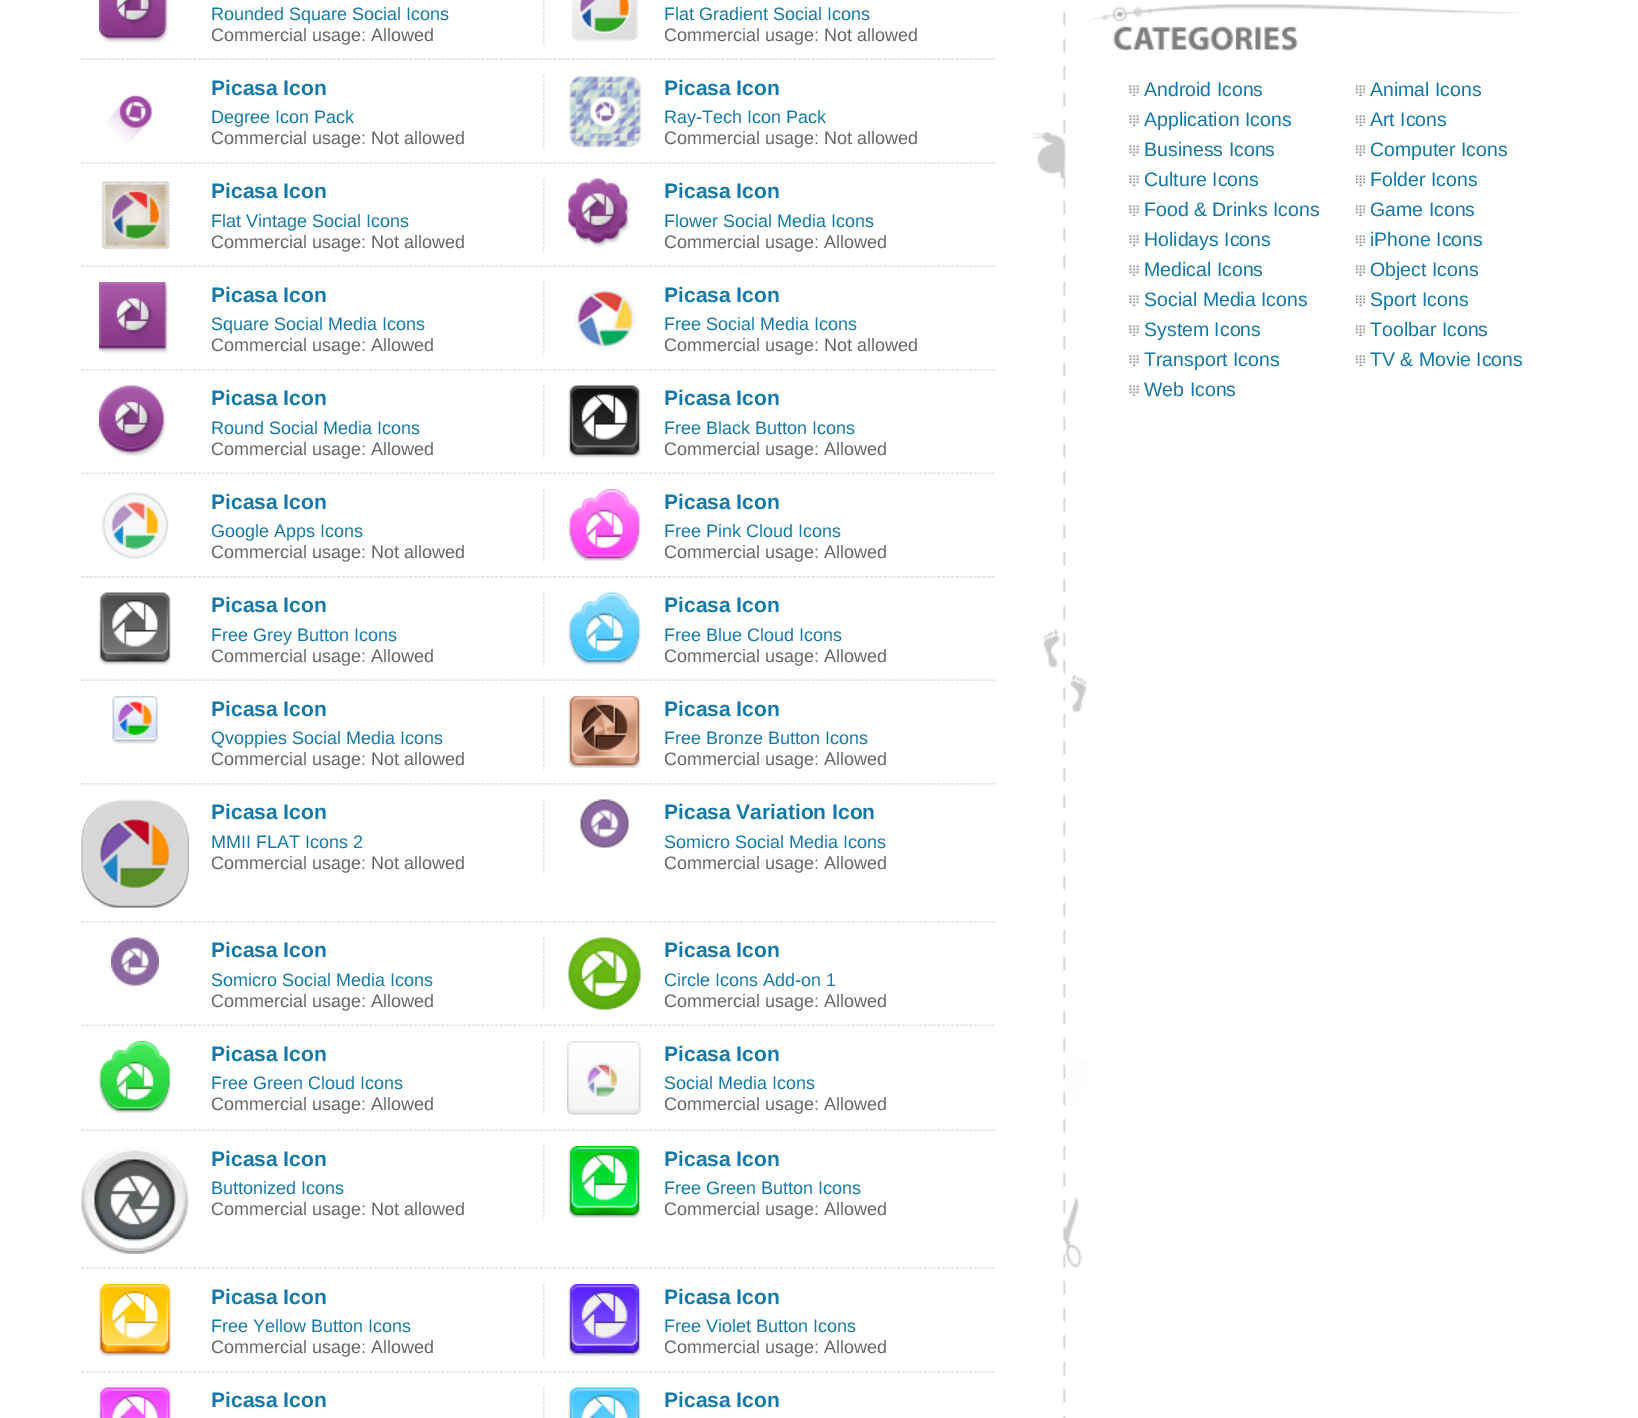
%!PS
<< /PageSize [1638 1418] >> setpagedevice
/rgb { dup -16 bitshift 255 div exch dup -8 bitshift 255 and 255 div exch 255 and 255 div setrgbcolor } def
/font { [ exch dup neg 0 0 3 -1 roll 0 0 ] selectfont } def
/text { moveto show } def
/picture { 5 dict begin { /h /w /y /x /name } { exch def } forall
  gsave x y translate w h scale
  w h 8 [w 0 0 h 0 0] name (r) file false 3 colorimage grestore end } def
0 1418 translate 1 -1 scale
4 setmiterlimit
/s1 { /LiberationSans-Regular 18 font 16#1479A8 rgb } def
/s2 { /LiberationSans-Regular 18 font 16#666666 rgb } def
/s3 { /LiberationSans-Bold 21 font 16#1479A8 rgb } def
/s4 { /LiberationSans-Regular 19.5 font 16#1479A8 rgb } def
16#FFFFFF rgb
0 0 1638 1418 rectfill
(pic1.raw) 81 58 108 2 picture
(pic2.raw) 99 0 70 43 picture
(pic3.raw) 189 58 378 2 picture
(pic4.raw) 543 0 2 45 picture
s1
(Rounded Square Social Icons) 211 20 text
s2
(Commercial usage: Allowed) 211 41 text
(pic5.raw) 567 58 74 2 picture
(pic6.raw) 571 0 67 41 picture
(pic7.raw) 641 58 355 2 picture
s1
(Flat Gradient Social Icons) 664 20 text
s2
(Commercial usage: Not allowed) 664 41 text
(pic8.raw) 81 162 108 2 picture
(pic9.raw) 106 95 46 48 picture
(pic10.raw) 189 162 378 2 picture
(pic11.raw) 543 75 2 74 picture
s3
(Picasa Icon) 211 95 text
s1
(Degree Icon Pack) 211 123 text
s2
(Commercial usage: Not allowed) 211 144 text
(pic12.raw) 567 162 74 2 picture
(pic13.raw) 569 76 72 71 picture
(pic14.raw) 641 162 355 2 picture
s3
(Picasa Icon) 664 95 text
s1
(Ray-Tech Icon Pack) 664 123 text
s2
(Commercial usage: Not allowed) 664 144 text
(pic1.raw) 81 265 108 2 picture
(pic15.raw) 101 181 69 69 picture
(pic3.raw) 189 265 378 2 picture
(pic16.raw) 543 178 2 74 picture
s3
(Picasa Icon) 211 198 text
s1
(Flat Vintage Social Icons) 211 227 text
s2
(Commercial usage: Not allowed) 211 248 text
(pic5.raw) 567 265 74 2 picture
(pic17.raw) 568 178 62 69 picture
(pic7.raw) 641 265 355 2 picture
s3
(Picasa Icon) 664 198 text
s1
(Flower Social Media Icons) 664 227 text
s2
(Commercial usage: Allowed) 664 248 text
(pic8.raw) 81 369 108 2 picture
(pic18.raw) 99 282 70 71 picture
(pic10.raw) 189 369 378 2 picture
(pic11.raw) 543 282 2 74 picture
s3
(Picasa Icon) 211 302 text
s1
(Square Social Media Icons) 211 330 text
s2
(Commercial usage: Allowed) 211 351 text
(pic19.raw) 567 369 74 2 picture
(pic20.raw) 574 288 62 62 picture
(pic14.raw) 641 369 355 2 picture
s3
(Picasa Icon) 664 302 text
s1
(Free Social Media Icons) 664 330 text
s2
(Commercial usage: Not allowed) 664 351 text
(pic1.raw) 81 472 108 2 picture
(pic21.raw) 99 385 67 71 picture
(pic3.raw) 189 472 378 2 picture
(pic22.raw) 543 385 2 74 picture
s3
(Picasa Icon) 211 405 text
s1
(Round Social Media Icons) 211 434 text
s2
(Commercial usage: Allowed) 211 455 text
(pic5.raw) 567 472 74 2 picture
(pic23.raw) 568 385 73 73 picture
(pic7.raw) 641 472 355 2 picture
s3
(Picasa Icon) 664 405 text
s1
(Free Black Button Icons) 664 434 text
s2
(Commercial usage: Allowed) 664 455 text
(pic8.raw) 81 576 108 2 picture
(pic24.raw) 101 492 68 67 picture
(pic10.raw) 189 576 378 2 picture
(pic25.raw) 543 489 2 74 picture
s3
(Picasa Icon) 211 509 text
s1
(Google Apps Icons) 211 537 text
s2
(Commercial usage: Not allowed) 211 558 text
(pic19.raw) 567 576 74 2 picture
(pic26.raw) 568 489 73 72 picture
(pic14.raw) 641 576 355 2 picture
s3
(Picasa Icon) 664 509 text
s1
(Free Pink Cloud Icons) 664 537 text
s2
(Commercial usage: Allowed) 664 558 text
(pic1.raw) 81 679 108 2 picture
(pic27.raw) 99 592 72 73 picture
(pic3.raw) 189 679 378 2 picture
(pic28.raw) 543 592 2 74 picture
s3
(Picasa Icon) 211 612 text
s1
(Free Grey Button Icons) 211 641 text
s2
(Commercial usage: Allowed) 211 662 text
(pic5.raw) 567 679 74 2 picture
(pic29.raw) 568 592 73 73 picture
(pic7.raw) 641 679 355 2 picture
s3
(Picasa Icon) 664 612 text
s1
(Free Blue Cloud Icons) 664 641 text
s2
(Commercial usage: Allowed) 664 662 text
(pic8.raw) 81 783 108 2 picture
(pic30.raw) 112 696 46 48 picture
(pic10.raw) 189 783 378 2 picture
(pic31.raw) 543 696 2 74 picture
s3
(Picasa Icon) 211 716 text
s1
(Qvoppies Social Media Icons) 211 744 text
s2
(Commercial usage: Not allowed) 211 765 text
(pic19.raw) 567 783 74 2 picture
(pic32.raw) 568 696 73 72 picture
(pic14.raw) 641 783 355 2 picture
s3
(Picasa Icon) 664 716 text
s1
(Free Bronze Button Icons) 664 744 text
s2
(Commercial usage: Allowed) 664 765 text
(pic8.raw) 81 921 108 2 picture
(pic33.raw) 81 799 108 109 picture
(pic10.raw) 189 921 378 2 picture
(pic34.raw) 543 799 2 74 picture
s3
(Picasa Icon) 211 819 text
s1
(MMII FLAT Icons 2) 211 848 text
s2
(Commercial usage: Not allowed) 211 869 text
(pic12.raw) 567 921 74 2 picture
(pic35.raw) 580 799 49 49 picture
(pic14.raw) 641 921 355 2 picture
s3
(Picasa Variation Icon) 664 819 text
s1
(Somicro Social Media Icons) 664 848 text
s2
(Commercial usage: Allowed) 664 869 text
(pic1.raw) 81 1024 108 2 picture
(pic36.raw) 111 937 48 49 picture
(pic3.raw) 189 1024 378 2 picture
(pic37.raw) 543 937 2 74 picture
s3
(Picasa Icon) 211 957 text
s1
(Somicro Social Media Icons) 211 986 text
s2
(Commercial usage: Allowed) 211 1007 text
(pic5.raw) 567 1024 74 2 picture
(pic38.raw) 568 937 73 73 picture
(pic7.raw) 641 1024 355 2 picture
s3
(Picasa Icon) 664 957 text
s1
(Circle Icons Add-on 1) 664 986 text
s2
(Commercial usage: Allowed) 664 1007 text
(pic1.raw) 81 1129 108 2 picture
(pic39.raw) 99 1041 72 72 picture
(pic3.raw) 189 1129 378 2 picture
(pic11.raw) 543 1041 2 74 picture
s3
(Picasa Icon) 211 1061 text
s1
(Free Green Cloud Icons) 211 1089 text
s2
(Commercial usage: Allowed) 211 1110 text
(pic5.raw) 567 1129 74 2 picture
(pic40.raw) 567 1041 74 74 picture
(pic7.raw) 641 1129 355 2 picture
s3
(Picasa Icon) 664 1061 text
s1
(Social Media Icons) 664 1089 text
s2
(Commercial usage: Allowed) 664 1110 text
(pic1.raw) 81 1267 108 2 picture
(pic41.raw) 81 1147 108 107 picture
(pic3.raw) 189 1267 378 2 picture
(pic42.raw) 543 1146 2 74 picture
s3
(Picasa Icon) 211 1166 text
s1
(Buttonized Icons) 211 1194 text
s2
(Commercial usage: Not allowed) 211 1215 text
(pic5.raw) 567 1267 74 2 picture
(pic43.raw) 568 1146 73 72 picture
(pic7.raw) 641 1267 355 2 picture
s3
(Picasa Icon) 664 1166 text
s1
(Free Green Button Icons) 664 1194 text
s2
(Commercial usage: Allowed) 664 1215 text
(pic8.raw) 81 1371 108 2 picture
(pic44.raw) 99 1284 72 72 picture
(pic10.raw) 189 1371 378 2 picture
(pic45.raw) 543 1284 2 74 picture
s3
(Picasa Icon) 211 1304 text
s1
(Free Yellow Button Icons) 211 1332 text
s2
(Commercial usage: Allowed) 211 1353 text
(pic19.raw) 567 1371 74 2 picture
(pic46.raw) 568 1284 73 72 picture
(pic14.raw) 641 1371 355 2 picture
s3
(Picasa Icon) 664 1304 text
s1
(Free Violet Button Icons) 664 1332 text
s2
(Commercial usage: Allowed) 664 1353 text
(pic47.raw) 99 1387 72 31 picture
(pic48.raw) 543 1387 2 31 picture
s3
(Picasa Icon) 211 1407 text
(pic49.raw) 568 1387 73 31 picture
(Picasa Icon) 664 1407 text
(pic50.raw) 1033 11 53 1407 picture
(pic51.raw) 1086 4 434 47 picture
(pic52.raw) 1129 85 10 11 picture
s4
(Android Icons) 1144 96 text
(pic53.raw) 1356 85 9 11 picture
(Animal Icons) 1370 96 text
(pic52.raw) 1129 115 10 11 picture
(Application Icons) 1144 126 text
(pic53.raw) 1356 115 9 11 picture
(Art Icons) 1370 126 text
(pic52.raw) 1129 145 10 11 picture
(Business Icons) 1144 156 text
(pic53.raw) 1356 145 9 11 picture
(Computer Icons) 1370 156 text
(pic52.raw) 1129 175 10 11 picture
(Culture Icons) 1144 186 text
(pic53.raw) 1356 175 9 11 picture
(Folder Icons) 1370 186 text
(pic52.raw) 1129 205 10 11 picture
(Food & Drinks Icons) 1144 216 text
(pic53.raw) 1356 205 9 11 picture
(Game Icons) 1370 216 text
(pic52.raw) 1129 235 10 11 picture
(Holidays Icons) 1144 246 text
(pic53.raw) 1356 235 9 11 picture
(iPhone Icons) 1370 246 text
(pic52.raw) 1129 265 10 11 picture
(Medical Icons) 1144 276 text
(pic53.raw) 1356 265 9 11 picture
(Object Icons) 1370 276 text
(pic52.raw) 1129 295 10 11 picture
(Social Media Icons) 1144 306 text
(pic53.raw) 1356 295 9 11 picture
(Sport Icons) 1370 306 text
(pic52.raw) 1129 325 10 11 picture
(System Icons) 1144 336 text
(pic53.raw) 1356 325 9 11 picture
(Toolbar Icons) 1370 336 text
(pic52.raw) 1129 355 10 11 picture
(Transport Icons) 1144 366 text
(pic53.raw) 1356 355 9 11 picture
(TV & Movie Icons) 1370 366 text
(pic52.raw) 1129 385 10 11 picture
(Web Icons) 1144 396 text
showpage
